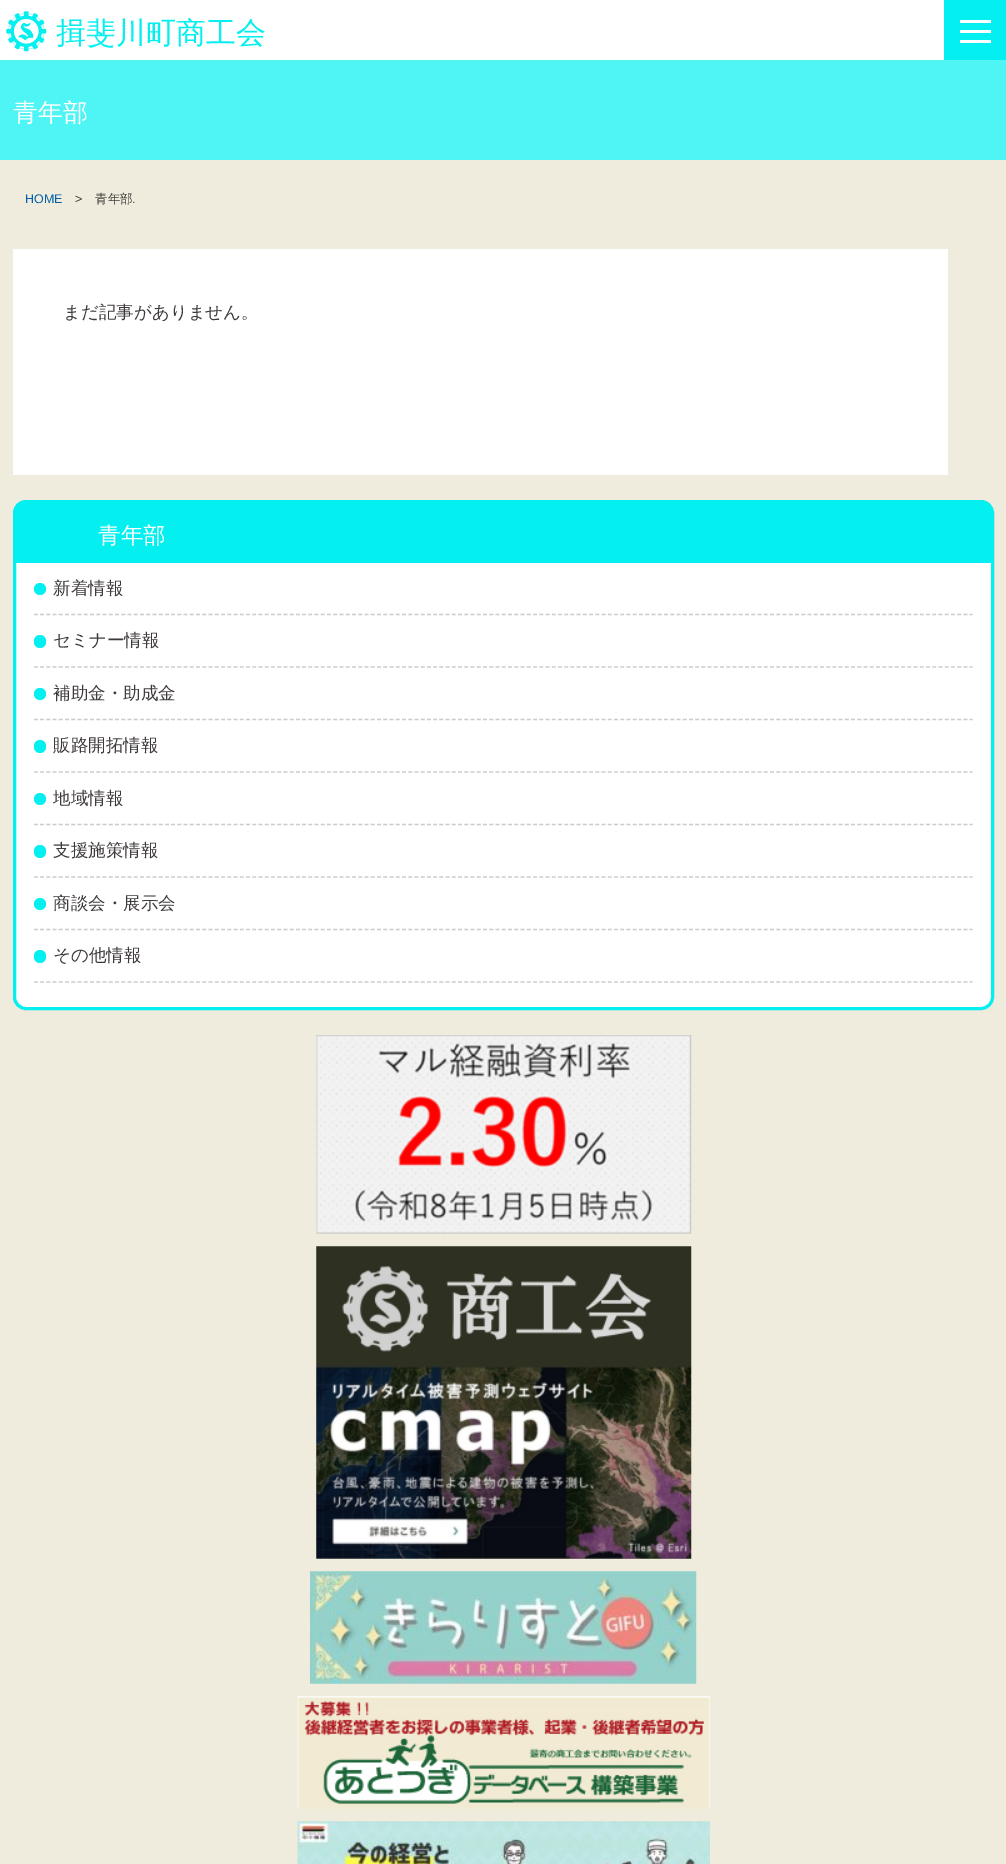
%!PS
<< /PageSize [1006 1864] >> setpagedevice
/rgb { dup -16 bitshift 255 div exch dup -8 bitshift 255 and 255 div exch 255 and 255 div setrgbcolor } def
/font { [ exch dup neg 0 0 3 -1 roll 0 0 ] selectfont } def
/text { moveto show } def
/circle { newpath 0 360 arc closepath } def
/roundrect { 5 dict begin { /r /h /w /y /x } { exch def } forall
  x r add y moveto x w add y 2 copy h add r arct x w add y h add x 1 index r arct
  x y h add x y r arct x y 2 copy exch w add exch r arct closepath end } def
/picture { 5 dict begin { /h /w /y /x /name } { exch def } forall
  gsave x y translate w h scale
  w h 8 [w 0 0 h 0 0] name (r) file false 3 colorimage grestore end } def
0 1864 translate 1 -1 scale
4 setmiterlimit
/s1 { /WenQuanYiZenHei-Medium 30 font 16#04EFEF rgb } def
/s2 { /WenQuanYiZenHei-Medium 25 font 16#FFFFFF rgb } def
/s3 { /LiberationSans-Regular 12.5 font 16#005FA8 rgb } def
/s4 { /LiberationSans-Regular 12.5 font 16#3E3A39 rgb } def
/s5 { /WenQuanYiZenHei-Medium 12.5 font 16#3E3A39 rgb } def
/s6 { /WenQuanYiZenHei-Medium 17.5 font 16#3E3A39 rgb } def
/s7 { /WenQuanYiZenHei-Medium 22.5 font 16#FFFFFF rgb } def
16#FFFFFF rgb
0 0 1006 1864 rectfill
(pic1.raw) 6 11 41 41 picture
s1
(揖斐川町商工会) 56 43 text
944 0 62 60 rectfill
16#FFFFFF rgb
960 20 31 3 rectfill
960 30 31 3 rectfill
960 40 31 3 rectfill
16#EFECDD rgb
0 160 1006 1704 rectfill
16#4FF4F4 rgb
0 60 1006 100 rectfill
s2
(青年部) 13 121 text
s3
(HOME) 25 203 text
s4
(>) 75 203 text
s5
(青年部) 95 203 text
s4
(.) 132 203 text
16#FFFFFF rgb
13 249 935 226 rectfill
s6
(まだ記事がありません。) 63 318 text
16#FFFFFF rgb
14.5 501.5 978 507 11.5 roundrect gsave fill grestore
16#04EFEF rgb
3 setlinewidth
stroke
21 503 moveto 985 503 lineto 988.5 503 991 505.5 991 509 curveto 991 563 lineto 15 563 lineto 15 509 lineto 15 505.5 17.5 503 21 503 curveto closepath fill
s7
(青年部) 98 543 text
16#CCCCCC rgb
1.2 setlinewidth
[3.75 2.49] 0 setdash
34 614.5 moveto 972.5 614.5 lineto stroke
16#04EFEF rgb
40 589 6 circle fill
s6
(新着情報) 53 594 text
16#CCCCCC rgb
34 667 moveto 972.5 667 lineto stroke
16#04EFEF rgb
34 635 12 13 6 roundrect fill
s6
(セミナー情報) 53 646 text
16#CCCCCC rgb
34 719.5 moveto 972.5 719.5 lineto stroke
16#04EFEF rgb
40 694 6 circle fill
s6
(補助金・助成金) 53 699 text
16#CCCCCC rgb
34 772 moveto 972.5 772 lineto stroke
16#04EFEF rgb
34 740 12 13 6 roundrect fill
s6
(販路開拓情報) 53 751 text
16#CCCCCC rgb
34 824.5 moveto 972.5 824.5 lineto stroke
16#04EFEF rgb
40 799 6 circle fill
s6
(地域情報) 53 804 text
16#CCCCCC rgb
34 877 moveto 972.5 877 lineto stroke
16#04EFEF rgb
34 845 12 13 6 roundrect fill
s6
(支援施策情報) 53 856 text
16#CCCCCC rgb
34 929.5 moveto 972.5 929.5 lineto stroke
16#04EFEF rgb
40 904 6 circle fill
s6
(商談会・展示会) 53 909 text
16#CCCCCC rgb
34 982 moveto 972.5 982 lineto stroke
16#04EFEF rgb
34 950 12 13 6 roundrect fill
s6
(その他情報) 53 961 text
(pic2.raw) 316 1035 376 199 picture
(pic3.raw) 316 1246 376 313 picture
(pic4.raw) 310 1571 387 113 picture
(pic5.raw) 297 1696 413 113 picture
(pic6.raw) 297 1821 413 43 picture
showpage
